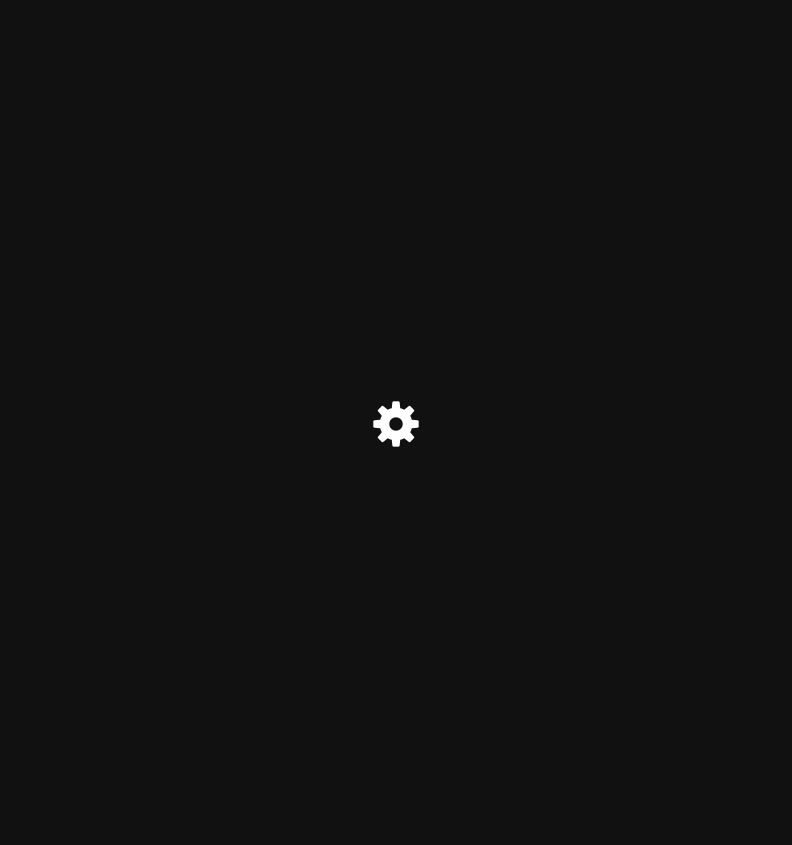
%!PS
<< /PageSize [792 845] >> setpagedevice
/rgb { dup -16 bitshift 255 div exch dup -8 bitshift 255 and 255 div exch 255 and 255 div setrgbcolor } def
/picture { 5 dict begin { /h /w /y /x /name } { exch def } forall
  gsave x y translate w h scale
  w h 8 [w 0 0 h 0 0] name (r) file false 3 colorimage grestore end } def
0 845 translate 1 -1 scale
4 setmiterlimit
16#111111 rgb
0 0 792 845 rectfill
(pic1.raw) 373 401 46 46 picture
showpage
